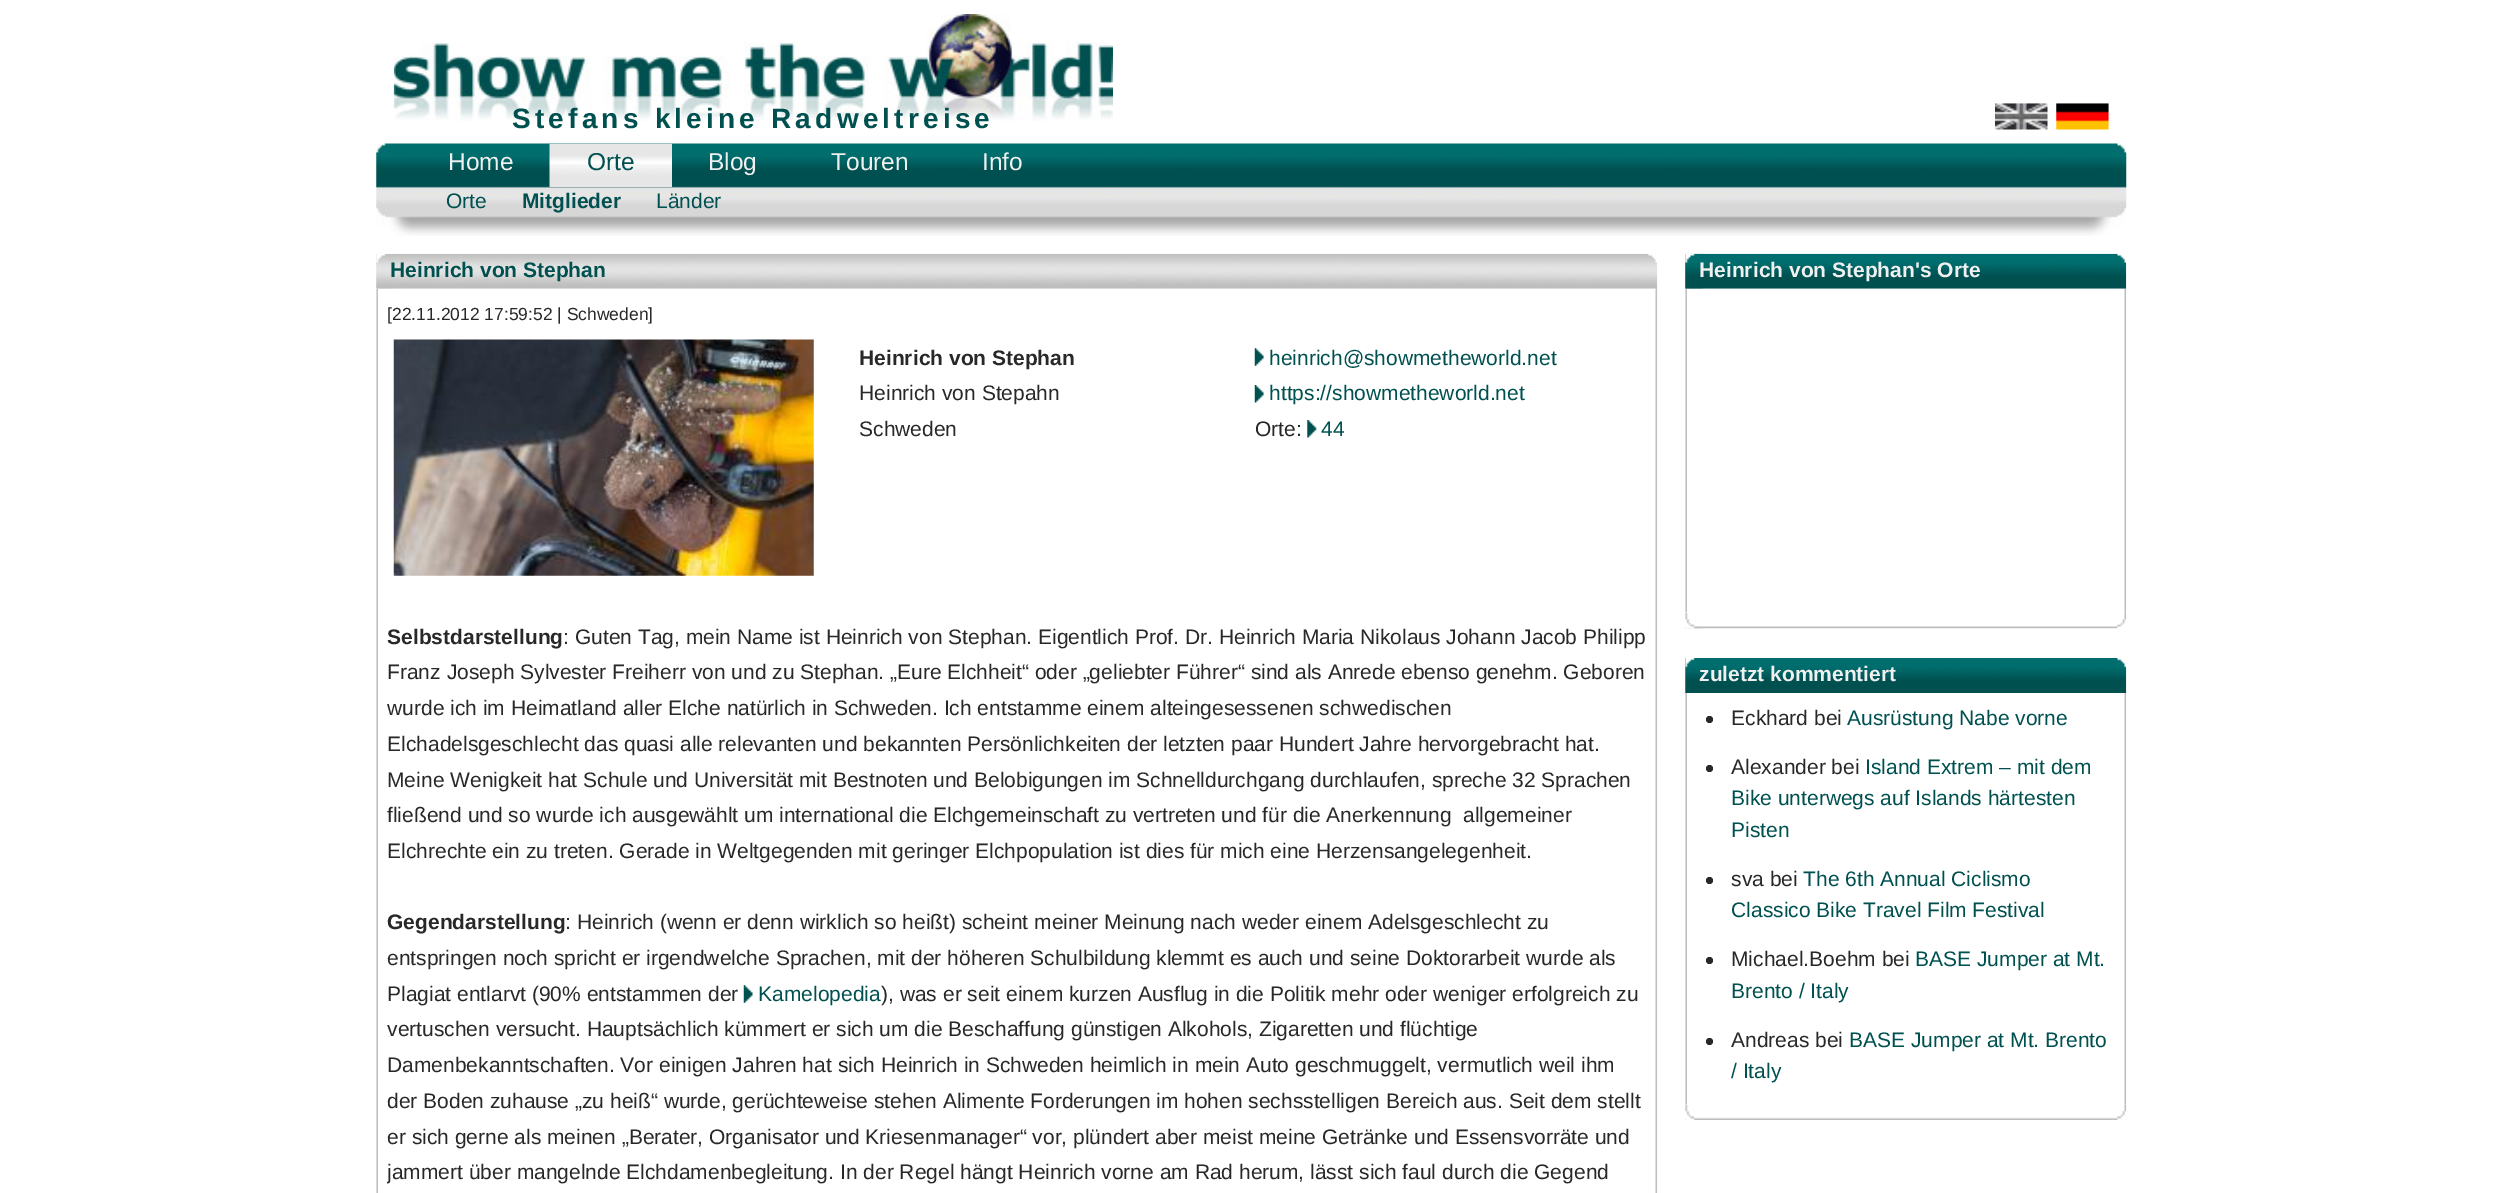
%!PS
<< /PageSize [2502 1193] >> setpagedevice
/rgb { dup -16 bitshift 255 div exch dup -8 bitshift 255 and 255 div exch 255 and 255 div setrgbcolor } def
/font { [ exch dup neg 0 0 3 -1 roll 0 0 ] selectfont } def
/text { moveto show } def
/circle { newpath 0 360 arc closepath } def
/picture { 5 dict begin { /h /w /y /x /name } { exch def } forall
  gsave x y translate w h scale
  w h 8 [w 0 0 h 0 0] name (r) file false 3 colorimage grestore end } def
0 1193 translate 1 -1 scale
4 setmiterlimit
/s1 { /LiberationSans-Regular 24.5 font 16#F0F0F0 rgb } def
/s2 { /LiberationSans-Regular 24.5 font 16#005050 rgb } def
/s3 { /LiberationSans-Regular 21 font 16#005050 rgb } def
/s4 { /LiberationSans-Bold 21 font 16#005050 rgb } def
/s5 { /LiberationSans-Regular 17.5 font 16#282828 rgb } def
/s6 { /LiberationSans-Bold 21 font 16#282828 rgb } def
/s7 { /LiberationSans-Regular 21 font 16#282828 rgb } def
/s8 { /LiberationSans-Bold 21 font 16#F0F0F0 rgb } def
16#FFFFFF rgb
0 0 2502 1193 rectfill
(pic1.raw) 393 14 720 107 picture
/LiberationSans-Bold 28 font
16#005050 rgb
512 128 moveto 4.2 0 (Stefans kleine Radweltreise) ashow
(pic2.raw) 1995 103 53 27 picture
(pic3.raw) 2056 103 53 27 picture
(pic4.raw) 376 143 1751 93 picture
s1
(Home) 448 170 text
(pic5.raw) 549 143 123 45 picture
s2
(Orte) 587 170 text
s1
(Blog) 708 170 text
(Touren) 831 170 text
(Info) 982 170 text
s3
(Orte) 446 208 text
s4
(Mitglieder) 522 208 text
gsave
656 189 65 33 rectclip
s3
(Länder) 656 208 text
grestore
(pic6.raw) 376 253 1282 36 picture
(pic7.raw) 376 254 18 35 picture
(Heinrich von Stephan) 390 277 text
(pic8.raw) 376 288 1282 905 picture
(pic9.raw) 376 289 2 904 picture
s5
([22.11.2012 17:59:52 | Schweden]) 387 320 text
(pic10.raw) 393 339 421 237 picture
s6
(Heinrich von Stephan) 859 365 text
s7
(Heinrich von Stepahn) 859 400 text
(Schweden) 859 436 text
(pic11.raw) 1254 348 10 18 picture
s3
(heinrich@showmetheworld.net) 1269 365 text
(pic12.raw) 1254 385 10 18 picture
(https://showmetheworld.net) 1269 400 text
s7
(Orte:) 1255 436 text
(pic13.raw) 1307 420 10 18 picture
s3
(44) 1321 436 text
s6
(Selbstdarstellung) 387 644 text
s7
(: Guten Tag, mein Name ist Heinrich von Stephan. Eigentlich Prof. Dr. Heinrich Maria Nikolaus Johann Jacob Philipp) 563 644 text
(Franz Joseph Sylvester Freiherr von und zu Stephan. „Eure Elchheit“ oder „geliebter Führer“ sind als Anrede ebenso genehm. Geboren) 387 679 text
(wurde ich im Heimatland aller Elche natürlich in Schweden. Ich entstamme einem alteingesessenen schwedischen) 387 715 text
(Elchadelsgeschlecht das quasi alle relevanten und bekannten Persönlichkeiten der letzten paar Hundert Jahre hervorgebracht hat.) 387 751 text
(Meine Wenigkeit hat Schule und Universität mit Bestnoten und Belobigungen im Schnelldurchgang durchlaufen, spreche 32 Sprachen) 387 787 text
(fließend und so wurde ich ausgewählt um international die Elchgemeinschaft zu vertreten und für die Anerkennung  allgemeiner) 387 822 text
(Elchrechte ein zu treten. Gerade in Weltgegenden mit geringer Elchpopulation ist dies für mich eine Herzensangelegenheit.) 387 858 text
s6
(Gegendarstellung) 387 929 text
s7
(: Heinrich \(wenn er denn wirklich so heißt\) scheint meiner Meinung nach weder einem Adelsgeschlecht zu) 565 929 text
(entspringen noch spricht er irgendwelche Sprachen, mit der höheren Schulbildung klemmt es auch und seine Doktorarbeit wurde als) 387 965 text
(Plagiat entlarvt \(90% entstammen der) 387 1001 text
(pic11.raw) 743 985 10 18 picture
s3
(Kamelopedia) 758 1001 text
s7
(\), was er seit einem kurzen Ausflug in die Politik mehr oder weniger erfolgreich zu) 881 1001 text
(vertuschen versucht. Hauptsächlich kümmert er sich um die Beschaffung günstigen Alkohols, Zigaretten und flüchtige) 387 1036 text
(Damenbekanntschaften. Vor einigen Jahren hat sich Heinrich in Schweden heimlich in mein Auto geschmuggelt, vermutlich weil ihm) 387 1072 text
(der Boden zuhause „zu heiß“ wurde, gerüchteweise stehen Alimente Forderungen im hohen sechsstelligen Bereich aus. Seit dem stellt) 387 1108 text
(er sich gerne als meinen „Berater, Organisator und Kriesenmanager“ vor, plündert aber meist meine Getränke und Essensvorräte und) 387 1144 text
gsave
387 298 1260 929 rectclip
(jammert über mangelnde Elchdamenbegleitung. In der Regel hängt Heinrich vorne am Rad herum, lässt sich faul durch die Gegend) 387 1179 text
grestore
(pic14.raw) 1685 253 442 36 picture
(pic15.raw) 1685 253 18 36 picture
s8
(Heinrich von Stephan's Orte) 1699 277 text
(pic18.raw) 1685 612 442 17 picture
(pic19.raw) 1685 612 18 17 picture
(pic16.raw) 1685 288 442 325 picture
(pic17.raw) 1685 288 2 325 picture
(pic20.raw) 1685 658 442 35 picture
(pic21.raw) 1685 658 10 35 picture
(zuletzt kommentiert) 1699 681 text
(pic24.raw) 1685 1104 442 16 picture
(pic25.raw) 1685 1104 10 16 picture
(pic22.raw) 1686 693 441 412 picture
(pic23.raw) 1685 693 2 411 picture
16#282828 rgb
1709.5 719.5 3.5 circle fill
s7
(Eckhard bei) 1731 725 text
s3
(Ausrüstung Nabe vorne) 1847 725 text
16#282828 rgb
1709.5 768.5 3.5 circle fill
(Alexander bei) 1731 774 text
s3
(Island Extrem – mit dem) 1865 774 text
(Bike unterwegs auf Islands härtesten) 1731 805 text
(Pisten) 1731 837 text
16#282828 rgb
1709.5 880.5 3.5 circle fill
(sva bei) 1731 886 text
s3
(The 6th Annual Ciclismo) 1803 886 text
(Classico Bike Travel Film Festival) 1731 917 text
16#282828 rgb
1709.5 960.5 3.5 circle fill
(Michael.Boehm bei) 1731 966 text
s3
(BASE Jumper at Mt.) 1915 966 text
(Brento / Italy) 1731 998 text
16#282828 rgb
1709.5 1041.5 3.5 circle fill
(Andreas bei) 1731 1047 text
s3
(BASE Jumper at Mt. Brento) 1849 1047 text
(/ Italy) 1731 1078 text
showpage
